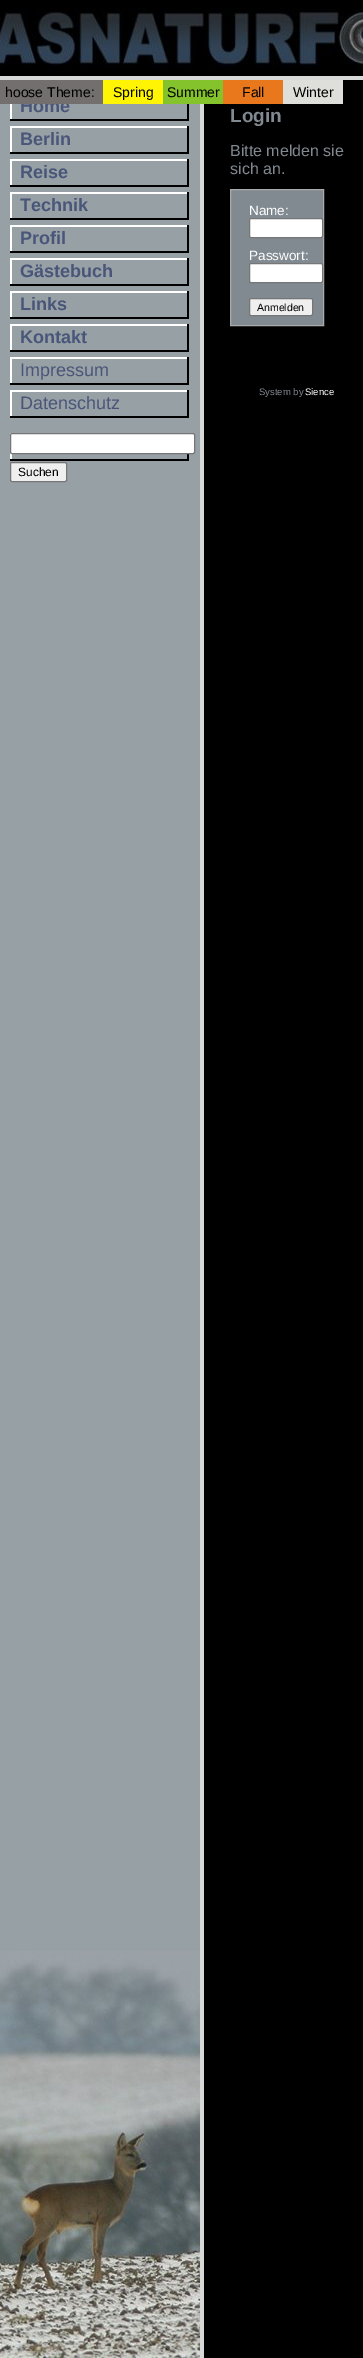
%!PS
<< /PageSize [363 2358] >> setpagedevice
/rgb { dup -16 bitshift 255 div exch dup -8 bitshift 255 and 255 div exch 255 and 255 div setrgbcolor } def
/font { [ exch dup neg 0 0 3 -1 roll 0 0 ] selectfont } def
/text { moveto show } def
/roundrect { 5 dict begin { /r /h /w /y /x } { exch def } forall
  x r add y moveto x w add y 2 copy h add r arct x w add y h add x 1 index r arct
  x y h add x y r arct x y 2 copy exch w add exch r arct closepath end } def
/picture { 5 dict begin { /h /w /y /x /name } { exch def } forall
  gsave x y translate w h scale
  w h 8 [w 0 0 h 0 0] name (r) file false 3 colorimage grestore end } def
0 2358 translate 1 -1 scale
4 setmiterlimit
/s1 { /LiberationSans-Bold 18 font 16#495679 rgb } def
/s2 { /LiberationSans-Regular 14 font 16#000000 rgb } def
/s3 { /LiberationSans-Bold 19 font 16#818A91 rgb } def
/s4 { /LiberationSans-Regular 16 font 16#818A91 rgb } def
/s5 { /LiberationSans-Regular 13.5 font 16#FFFFFF rgb } def
/s6 { /LiberationSans-Regular 10.5 font 16#000000 rgb } def
/s7 { /LiberationSans-Regular 9.5 font 16#818A91 rgb } def
/s8 { /LiberationSans-Regular 9.5 font 16#FFFFFF rgb } def
/s9 { /LiberationSans-Regular 18 font 16#495679 rgb } def
/s10 { /LiberationSans-Regular 12 font 16#000000 rgb } def
16#000000 rgb
0 0 363 2358 rectfill
(pic1.raw) 0 8 363 60 picture
16#97A0A5 rgb
0 104 200 1847 rectfill
(pic3.raw) 10 104 179 17 picture
s1
(Home) 20 112 text
16#736F6E rgb
0 80 103 24 rectfill
s2
(hoose Theme:) 5 97 text
16#FFF403 rgb
103 80 60 24 rectfill
s2
(Spring) 113 97 text
16#D7D9D8 rgb
0 76 363 4 rectfill
200 76 4 2282 rectfill
16#84C32C rgb
163 80 60 24 rectfill
s2
(Summer) 167 97 text
16#E9781C rgb
223 80 60 24 rectfill
s2
(Fall) 242 97 text
16#DEDFDA rgb
283 80 60 24 rectfill
s2
(Winter) 293 97 text
s3
(Login) 230 122 text
s4
(Bitte melden sie) 230 156 text
(sich an.) 230 174 text
230.5 189.5 moveto 323.5 189.5 lineto 323.5 325.5 lineto 230.5 325.5 lineto closepath gsave fill grestore
16#AAAAAA rgb
stroke
s5
(Name:) 249 215 text
249.5 218.5 73 19 1.5 roundrect gsave fill grestore
16#767676 rgb
stroke
s5
(Passwort:) 249 260 text
249.5 263.5 73 19 1.5 roundrect gsave fill grestore
16#767676 rgb
stroke
16#EFEFEF rgb
249.5 298.5 63 17 1.5 roundrect gsave fill grestore
16#767676 rgb
stroke
s6
(Anmelden) 257 311 text
s7
(System by) 259 395 text
s8
(Sience) 305 395 text
(pic2.raw) 0 1951 200 407 picture
(pic4.raw) 10 126 179 28 picture
s1
(Berlin) 20 145 text
(pic4.raw) 10 159 179 28 picture
(Reise) 20 178 text
(pic4.raw) 10 192 179 28 picture
(Technik) 20 211 text
(pic4.raw) 10 225 179 28 picture
(Profil) 20 244 text
(pic4.raw) 10 258 179 28 picture
(Gästebuch) 20 277 text
(pic4.raw) 10 291 179 28 picture
(Links) 20 310 text
(pic4.raw) 10 324 179 28 picture
(Kontakt) 20 343 text
(pic4.raw) 10 357 179 28 picture
s9
(Impressum) 20 376 text
(pic4.raw) 10 390 179 28 picture
(Datenschutz) 20 409 text
(pic4.raw) 10 433 179 28 picture
16#FFFFFF rgb
10.5 433.5 184 20 1.5 roundrect gsave fill grestore
16#767676 rgb
stroke
16#EFEFEF rgb
10.5 462.5 56 19 1.5 roundrect gsave fill grestore
16#767676 rgb
stroke
s10
(Suchen) 18 476 text
showpage
